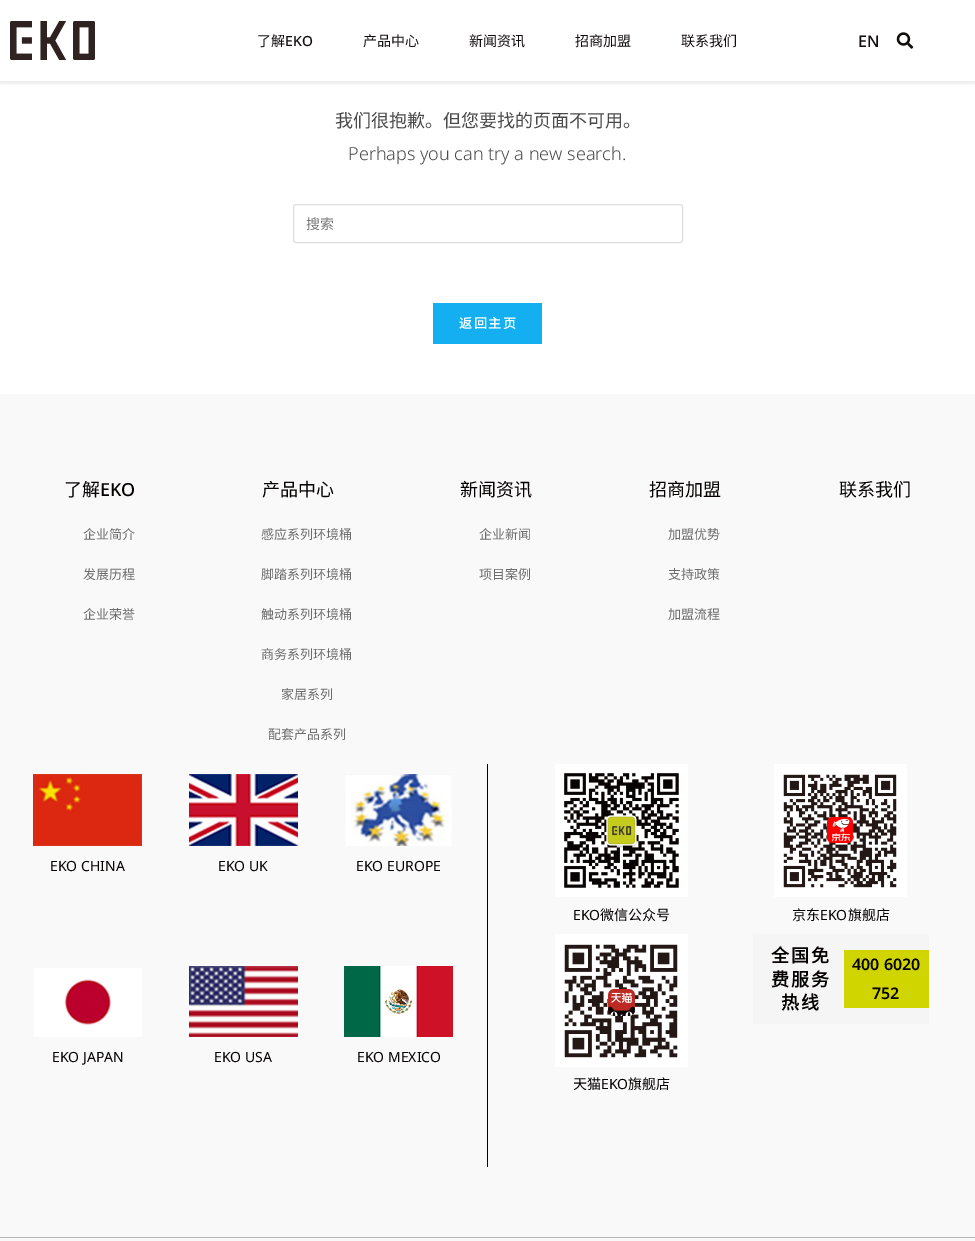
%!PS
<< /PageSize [975 1241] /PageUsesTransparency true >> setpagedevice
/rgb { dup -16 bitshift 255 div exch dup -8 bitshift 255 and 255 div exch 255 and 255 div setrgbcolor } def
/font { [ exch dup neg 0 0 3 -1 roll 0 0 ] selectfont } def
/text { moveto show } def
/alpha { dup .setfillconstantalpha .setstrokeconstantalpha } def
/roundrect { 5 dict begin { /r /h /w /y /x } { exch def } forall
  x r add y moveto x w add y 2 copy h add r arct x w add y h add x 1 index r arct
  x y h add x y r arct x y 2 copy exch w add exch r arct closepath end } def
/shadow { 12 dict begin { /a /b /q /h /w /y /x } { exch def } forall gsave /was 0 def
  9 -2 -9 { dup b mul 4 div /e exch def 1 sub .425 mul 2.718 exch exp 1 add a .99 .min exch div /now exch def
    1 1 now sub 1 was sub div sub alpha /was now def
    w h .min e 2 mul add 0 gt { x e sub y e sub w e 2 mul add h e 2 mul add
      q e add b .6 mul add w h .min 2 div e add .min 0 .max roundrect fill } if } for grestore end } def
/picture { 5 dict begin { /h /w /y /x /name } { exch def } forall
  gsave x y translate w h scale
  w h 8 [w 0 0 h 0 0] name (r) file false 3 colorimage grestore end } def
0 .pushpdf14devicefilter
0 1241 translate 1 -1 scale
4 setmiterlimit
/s1 { /NotoSansCJKSC-Regular 14 font 16#110D0D rgb } def
/s2 { /NotoSans-Medium 14 font 16#110D0D rgb } def
/s3 { /NotoSans-Medium 16 font 16#110D0D rgb } def
/s4 { /NotoSansCJKSC-Regular 18 font 16#4A4A4A rgb } def
/s5 { /NotoSans-Light 18 font 16#4A4A4A rgb } def
/s6 { /NotoSansCJKSC-Regular 14 font 16#757575 rgb } def
/s7 { /NotoSansCJKSC-Regular 18 font 16#040000 rgb } def
/s8 { /NotoSans-Medium 18 font 16#040000 rgb } def
/s9 { /NotoSansCJKSC-Regular 13 font 16#6C6C6C rgb } def
/s10 { /NotoSans-Regular 14 font 16#040000 rgb } def
/s11 { /NotoSansCJKSC-Regular 14 font 16#040000 rgb } def
/s12 { /NotoSans-SemiBold 16 font 16#040000 rgb } def
16#FFFFFF rgb
0 0 975 1241 rectfill
gsave
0 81 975 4 rectclip
16#0D0D0D rgb
0 2 975 81 0 2.5 0.1 shadow
grestore
(pic1.raw) 10 21 85 39 picture
s1
(了解) 257 46 text
s2
(EKO) 285 46 text
s1
(产品中心) 363 46 text
(新闻资讯) 469 46 text
(招商加盟) 575 46 text
(联系我们) 681 46 text
s3
(EN) 858 47 text
(pic2.raw) 896 32 18 17 picture
s4
(我们很抱歉。但您要找的页面不可用。) 335 127 text
s5
(Perhaps you can try a new search.) 348 160 text
16#DDDDDD rgb
293.5 204.5 389 38 2.5 roundrect stroke
s6
(搜索) 306 229 text
16#13AFF0 rgb
433 303 109 41 rectfill
/NotoSansCJKSC-Bold 13 font
16#FFFFFF rgb
459 328 moveto 1.5 0 (返回主页) ashow
16#F9F9F9 rgb
0 394 975 843 rectfill
16#B5B6B6 rgb
0 1237 975 1 rectfill
s7
(了解) 64 496 text
s8
(EKO) 100 496 text
s9
(企业简介) 83 539 text
(发展历程) 83 579 text
(企业荣誉) 83 619 text
s7
(产品中心) 262 496 text
s9
(感应系列环境桶) 261 539 text
(脚踏系列环境桶) 261 579 text
(触动系列环境桶) 261 619 text
(商务系列环境桶) 261 659 text
(家居系列) 281 699 text
(配套产品系列) 268 739 text
s7
(新闻资讯) 460 496 text
s9
(企业新闻) 479 539 text
(项目案例) 479 579 text
s7
(招商加盟) 649 496 text
s9
(加盟优势) 668 539 text
(支持政策) 668 579 text
(加盟流程) 668 619 text
s7
(联系我们) 839 496 text
487 764 1 403 rectfill
(pic3.raw) 33 774 109 72 picture
s10
(EKO CHINA) 50 871 text
(pic4.raw) 189 774 109 72 picture
(EKO UK) 218 871 text
(pic5.raw) 344 774 109 72 picture
(EKO EUROPE) 356 871 text
(pic6.raw) 33 968 109 69 picture
(EKO JAPAN) 52 1062 text
(pic7.raw) 189 966 109 71 picture
(EKO USA) 214 1062 text
(pic8.raw) 344 966 109 71 picture
(EKO MEXICO) 357 1062 text
(pic9.raw) 555 764 133 133 picture
(EKO) 573 920 text
s11
(微信公众号) 600 920 text
(pic10.raw) 774 764 133 133 picture
(京东) 792 920 text
s10
(EKO) 820 920 text
s11
(旗舰店) 848 920 text
16#F5F5F5 rgb
753 934 176 90 rectfill
/NotoSansCJKSC-Bold 18 font
16#040000 rgb
771 962 moveto 2 0 (全国免) ashow
771 986 moveto 2 0 (费服务) ashow
781 1009 moveto 2 0 (热线) ashow
16#D0D500 rgb
844 950 85 58 rectfill
s12
(400 6020) 852 970 text
(752) 872 999 text
(pic11.raw) 555 934 133 133 picture
s11
(天猫) 573 1089 text
s10
(EKO) 601 1089 text
s11
(旗舰店) 628 1089 text
16#F9F9F9 rgb
0 1238 975 3 rectfill
.poppdf14devicefilter showpage
